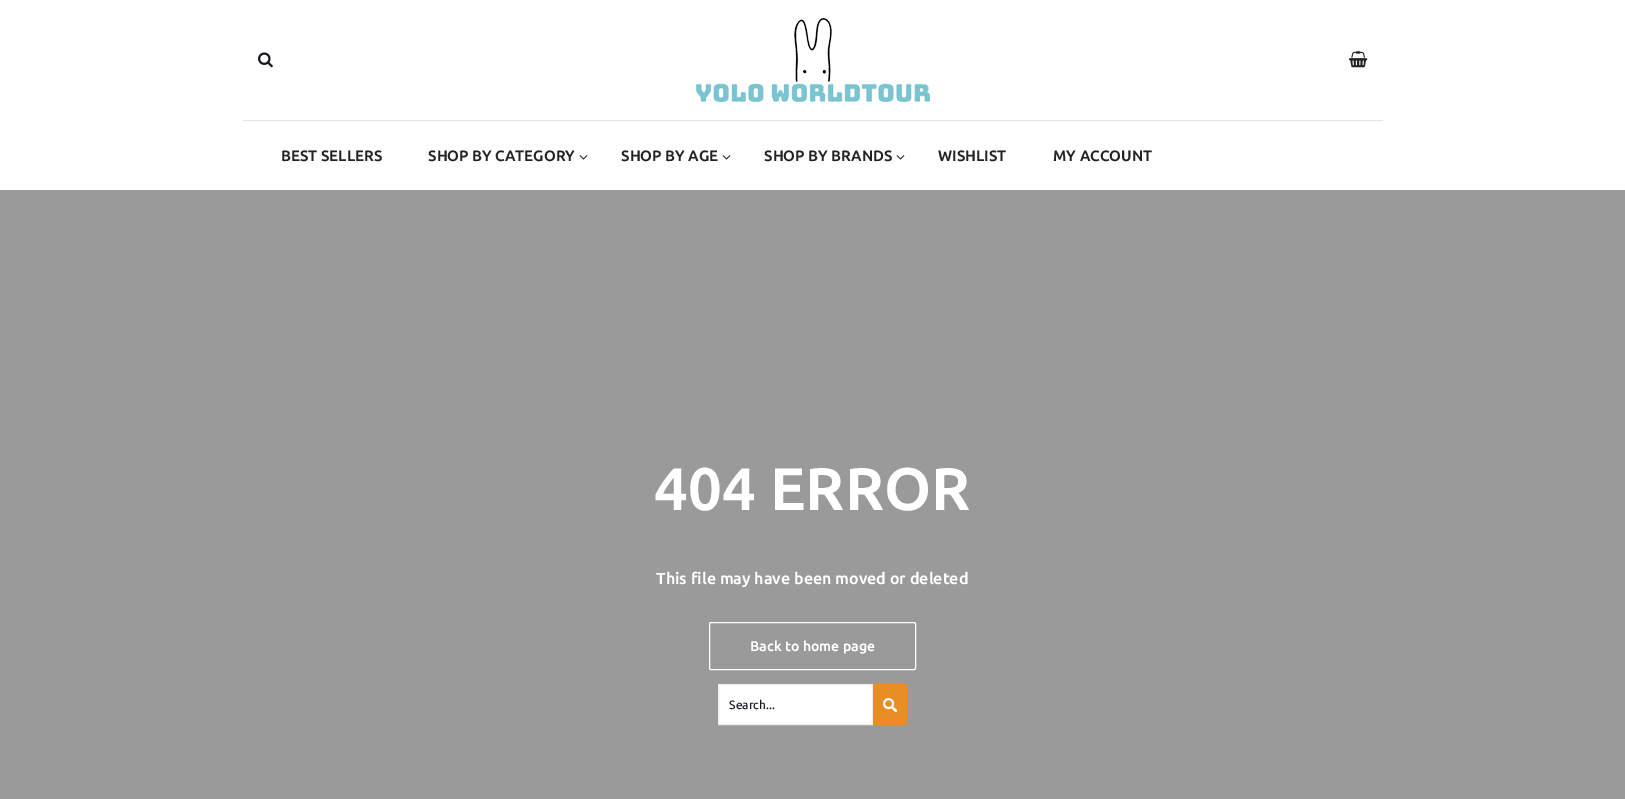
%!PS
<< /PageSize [1625 799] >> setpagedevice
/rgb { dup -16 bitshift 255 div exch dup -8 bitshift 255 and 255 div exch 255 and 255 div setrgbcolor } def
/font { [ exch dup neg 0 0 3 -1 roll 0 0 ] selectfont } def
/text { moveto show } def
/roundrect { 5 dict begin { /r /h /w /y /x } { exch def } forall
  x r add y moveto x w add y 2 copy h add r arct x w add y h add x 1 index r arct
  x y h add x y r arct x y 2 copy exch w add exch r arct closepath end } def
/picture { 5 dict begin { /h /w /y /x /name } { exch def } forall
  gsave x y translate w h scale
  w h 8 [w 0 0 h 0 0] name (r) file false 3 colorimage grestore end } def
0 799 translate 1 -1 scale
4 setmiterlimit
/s1 { /Ubuntu-Bold 15 font 16#232323 rgb } def
/s2 { /Ubuntu-Bold 60 font 16#FFFFFF rgb } def
/s3 { /Ubuntu-Bold 16 font 16#FFFFFF rgb } def
/s4 { /Ubuntu-Bold 14 font 16#FFFFFF rgb } def
/s5 { /Ubuntu-Medium 12 font 16#171822 rgb } def
16#FFFFFF rgb
0 0 1625 799 rectfill
(pic1.raw) 258 52 15 16 picture
(pic2.raw) 696 18 234 84 picture
(pic3.raw) 1349 51 19 17 picture
16#E5E5E5 rgb
243 120 1140 1 rectfill
s1
(BEST SELLERS) 281 161 text
(SHOP BY CATEGORY) 428 161 text
(pic4.raw) 579 155 9 5 picture
(SHOP BY AGE) 621 161 text
(pic4.raw) 722 155 9 5 picture
(SHOP BY BRANDS) 764 161 text
(pic4.raw) 896 155 9 5 picture
(WISHLIST) 938 161 text
(MY ACCOUNT) 1053 161 text
16#9A9A9A rgb
0 190 1625 609 rectfill
s2
(404 ERROR) 654 510 text
s3
(This file may have been moved or deleted) 656 584 text
709.5 622.5 206 47 1.5 roundrect stroke
s4
(Back to home page) 750 651 text
718.5 684.5 moveto 872.5 684.5 lineto 872.5 724.5 lineto 718.5 724.5 lineto closepath gsave fill grestore
16#EEEEEE rgb
stroke
s5
(Search...) 729 709 text
16#E98D26 rgb
873 684 34 41 rectfill
(pic5.raw) 883 698 14 14 picture
showpage
